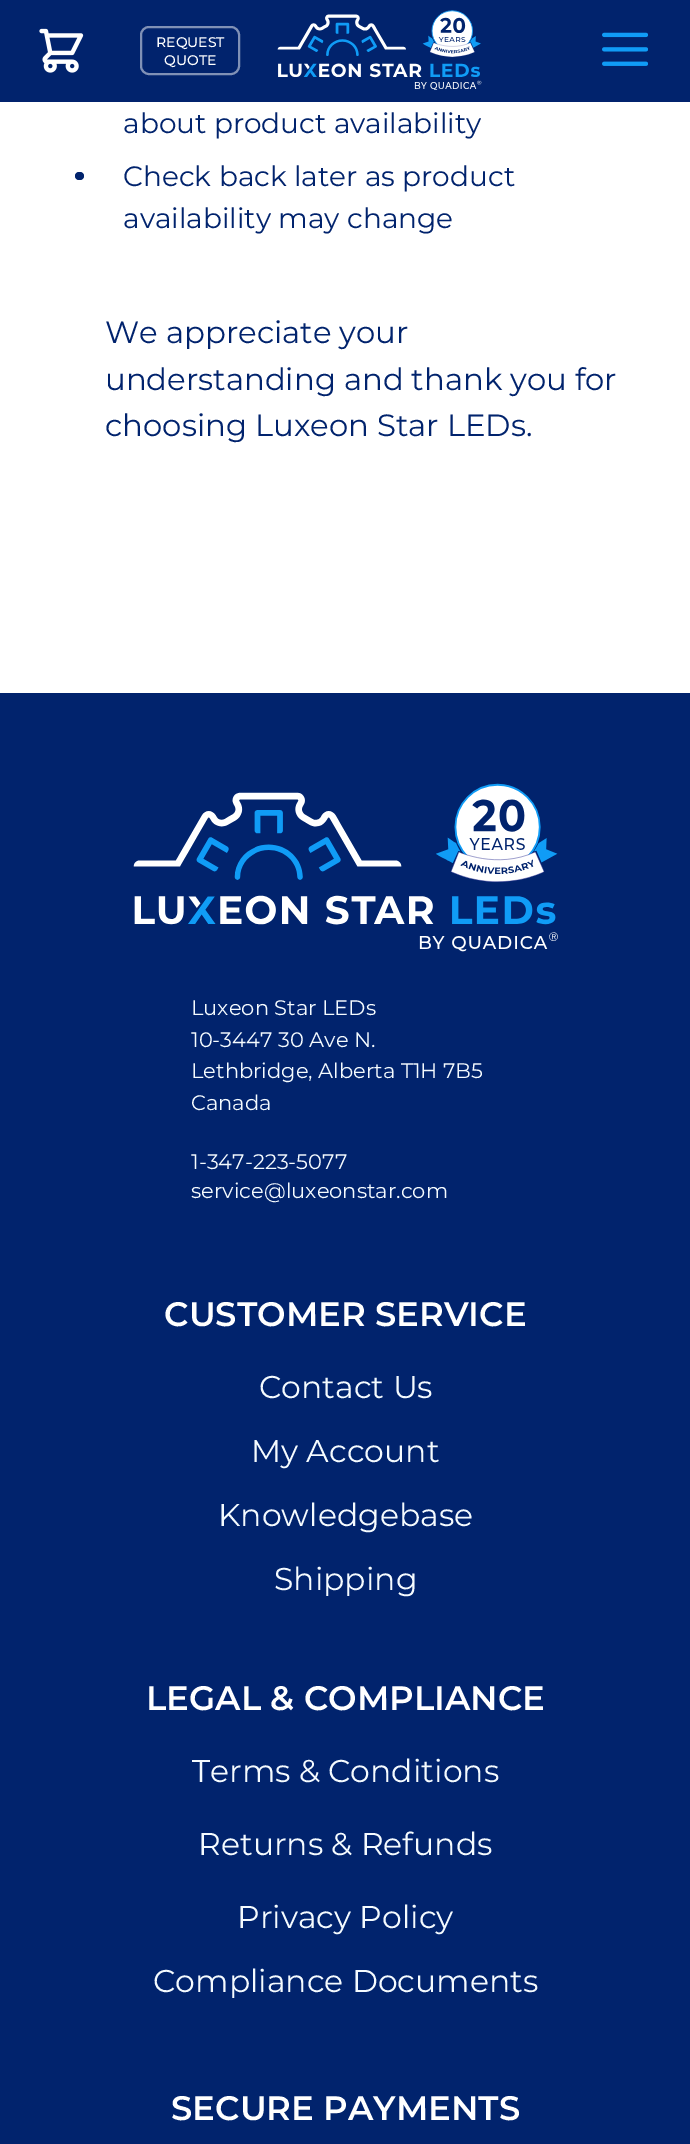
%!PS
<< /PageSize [690 2144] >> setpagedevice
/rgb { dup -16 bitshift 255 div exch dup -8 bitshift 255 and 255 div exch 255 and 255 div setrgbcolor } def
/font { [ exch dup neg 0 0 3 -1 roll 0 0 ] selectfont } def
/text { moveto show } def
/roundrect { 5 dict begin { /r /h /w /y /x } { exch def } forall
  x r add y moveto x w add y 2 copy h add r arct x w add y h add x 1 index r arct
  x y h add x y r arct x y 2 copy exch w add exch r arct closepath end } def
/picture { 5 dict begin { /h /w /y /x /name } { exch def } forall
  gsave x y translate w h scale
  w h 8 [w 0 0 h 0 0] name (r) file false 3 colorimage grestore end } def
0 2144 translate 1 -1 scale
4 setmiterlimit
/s1 { /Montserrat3-Thin 14 font 16#FFFFFF rgb } def
/s2 { /Montserrat-Thin 28 font 16#01236D rgb } def
/s3 { /Montserrat-Thin 30.75 font 16#01236D rgb } def
/s4 { /Montserrat-Thin 21 font 16#F5FBFF rgb } def
/s5 { /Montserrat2-Thin 33.9 font 16#FFFFFF rgb } def
/s6 { /Montserrat-Thin 31.5 font 16#F5FBFF rgb } def
16#FFFFFF rgb
0 0 690 2144 rectfill
16#01236D rgb
0 0 690 102 rectfill
(pic1.raw) 39 28 45 45 picture
16#8091B6 rgb
2 setlinewidth
141 27 98 47 8 roundrect stroke
s1
(REQUEST) 156 47 text
(QUOTE) 164 65 text
(pic2.raw) 277 10 205 80 picture
(pic3.raw) 602 32 46 34 picture
s2
(about product availability) 123 133 text
75 172 9 8 4 roundrect fill
(Check back later as product) 123 186 text
(availability may change) 123 228 text
s3
(We appreciate your) 105 343 text
(understanding and thank you for) 105 390 text
(choosing Luxeon Star LEDs.) 105 436 text
0 693 690 1451 rectfill
(pic4.raw) 133 783 425 169 picture
s4
(Luxeon Star LEDs) 191 1015 text
(10-3447 30 Ave N.) 191 1047 text
(Lethbridge, Alberta T1H 7B5) 191 1078 text
(Canada) 191 1110 text
(1-347-223-5077) 191 1169 text
(service@luxeonstar.com) 191 1198 text
s5
(CUSTOMER SERVICE) 164 1326 text
s6
(Contact Us) 259 1398 text
(My Account) 251 1462 text
(Knowledgebase) 218 1526 text
(Shipping) 274 1590 text
s5
(LEGAL & COMPLIANCE) 146 1710 text
s6
(Terms & Conditions) 192 1782 text
(Returns & Refunds) 198 1855 text
(Privacy Policy) 237 1928 text
(Compliance Documents) 153 1992 text
s5
(SECURE PAYMENTS) 171 2120 text
showpage
